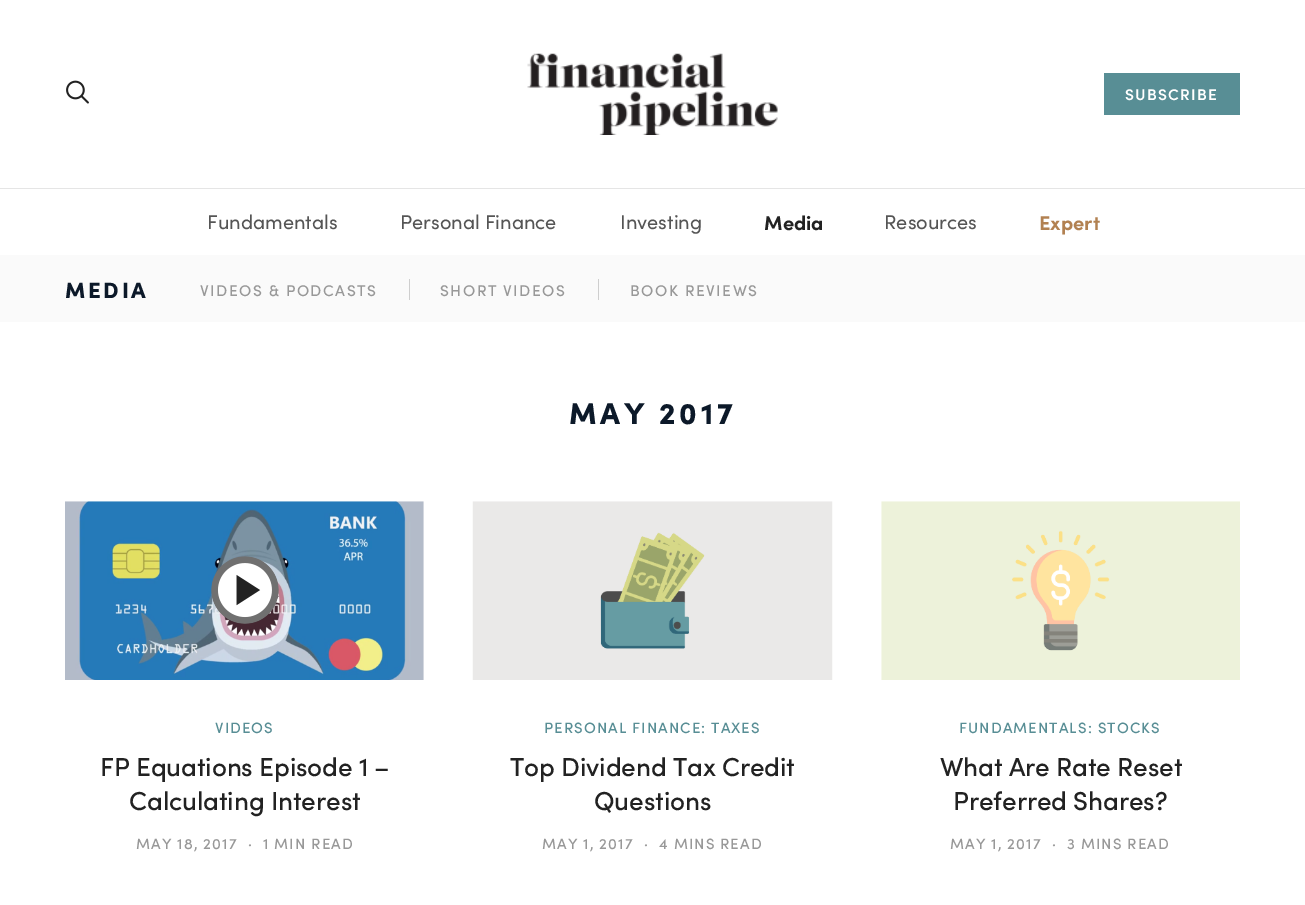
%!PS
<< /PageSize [1305 905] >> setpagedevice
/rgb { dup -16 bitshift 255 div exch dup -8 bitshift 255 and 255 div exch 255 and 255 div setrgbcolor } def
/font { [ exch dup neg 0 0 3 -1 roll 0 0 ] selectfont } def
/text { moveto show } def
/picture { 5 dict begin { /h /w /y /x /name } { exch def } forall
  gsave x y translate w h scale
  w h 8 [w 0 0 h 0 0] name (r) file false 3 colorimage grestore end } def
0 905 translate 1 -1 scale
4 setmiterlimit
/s1 { /Sofia-Regular 20 font 16#555555 rgb } def
/s2 { /Sofia-Bold 20 font 16#222222 rgb } def
/s3 { /Sofia-Bold 20 font 16#B28151 rgb } def
16#FFFFFF rgb
0 0 1305 905 rectfill
(pic1.raw) 66 80 23 24 picture
(pic2.raw) 527 53 251 82 picture
16#588E95 rgb
1104 73 136 42 rectfill
/Sofia-SemiBold 15.5 font
16#FFFFFF rgb
1125 100 moveto 1.25 0 (SUBSCRIBE) ashow
16#E5E5E5 rgb
0 188 1305 1 rectfill
s1
(Fundamentals) 207 229 text
(Personal Finance) 400 229 text
s2
(Media) 764 230 text
16#FAFAFA rgb
0 255 1305 67 rectfill
/Sofia-Black 22 font
16#0C1929 rgb
65 298 moveto 2.75 0 (MEDIA) ashow
16#CECECE rgb
409 279 1 21 rectfill
/Sofia-Medium 15.5 font
16#989898 rgb
200 296 moveto 1.5 0 (VIDEOS & PODCASTS) ashow
16#CECECE rgb
598 279 1 21 rectfill
16#989898 rgb
440 296 moveto 1.5 0 (SHORT VIDEOS) ashow
630 296 moveto 1.5 0 (BOOK REVIEWS) ashow
s1
(Investing) 620 229 text
(Resources) 884 229 text
s3
(Expert) 1039 230 text
/Sofia-Black 30 font
16#0C1929 rgb
569 424 moveto 3.75 0 (MAY 2017) ashow
(pic3.raw) 65 501 359 179 picture
(pic4.raw) 211 556 68 68 picture
/Sofia-Medium 15 font
16#588E95 rgb
215 733 moveto 1.1 0 (VIDEOS) ashow
/Sofia-Medium 26 font
16#222222 rgb
100 776 moveto -0.1 0 (FP Equations Episode 1 –) ashow
129 810 moveto -0.1 0 (Calculating Interest) ashow
/Sofia-Medium 15 font
16#989898 rgb
136 849 moveto 1.1 0 (MAY 18, 2017) ashow
248 849 moveto 1.1 0 (·) ashow
263 849 moveto 1.1 0 (1 MIN READ) ashow
(pic5.raw) 472 501 361 179 picture
16#588E95 rgb
544 733 moveto 1.1 0 (PERSONAL FINANCE: TAXES) ashow
/Sofia-Medium 26 font
16#222222 rgb
510 776 moveto -0.1 0 (Top Dividend Tax Credit) ashow
594 810 moveto -0.1 0 (Questions) ashow
/Sofia-Medium 15 font
16#989898 rgb
542 849 moveto 1.1 0 (MAY 1, 2017) ashow
644 849 moveto 1.1 0 (·) ashow
659 849 moveto 1.1 0 (4 MINS READ) ashow
(pic6.raw) 881 501 359 179 picture
16#588E95 rgb
959 733 moveto 1.1 0 (FUNDAMENTALS: STOCKS) ashow
/Sofia-Medium 26 font
16#222222 rgb
940 776 moveto -0.1 0 (What Are Rate Reset) ashow
953 810 moveto -0.1 0 (Preferred Shares?) ashow
/Sofia-Medium 15 font
16#989898 rgb
950 849 moveto 1.1 0 (MAY 1, 2017) ashow
1052 849 moveto 1.1 0 (·) ashow
1067 849 moveto 1.1 0 (3 MINS READ) ashow
showpage
